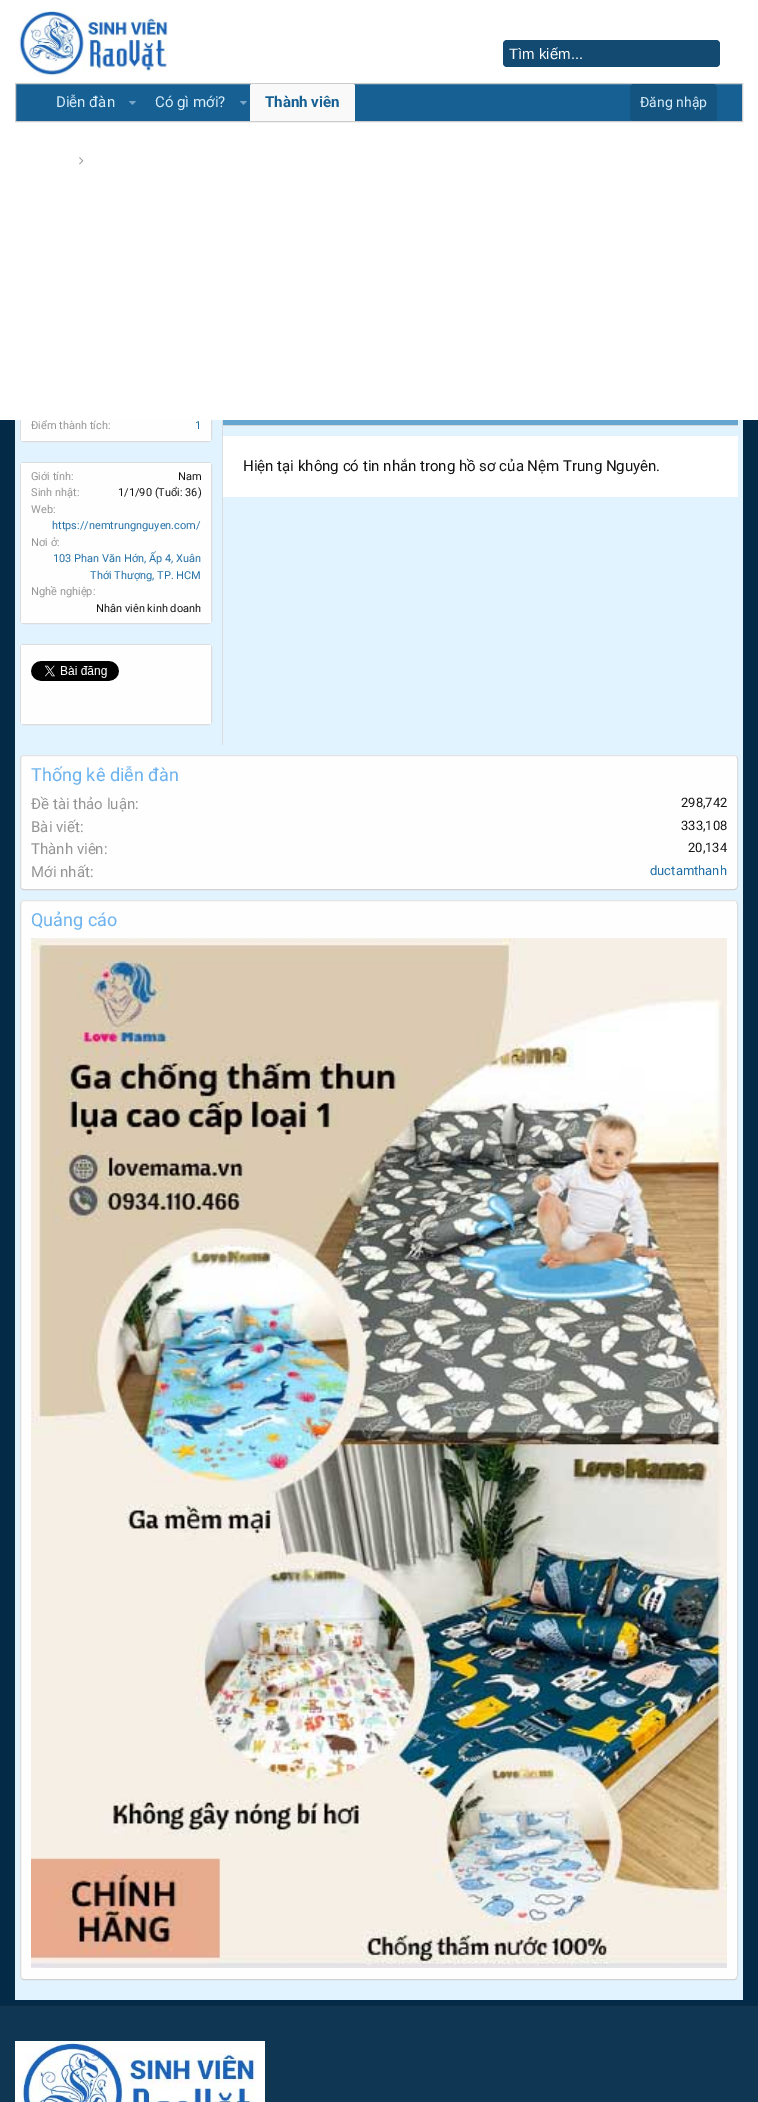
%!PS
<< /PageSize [758 2102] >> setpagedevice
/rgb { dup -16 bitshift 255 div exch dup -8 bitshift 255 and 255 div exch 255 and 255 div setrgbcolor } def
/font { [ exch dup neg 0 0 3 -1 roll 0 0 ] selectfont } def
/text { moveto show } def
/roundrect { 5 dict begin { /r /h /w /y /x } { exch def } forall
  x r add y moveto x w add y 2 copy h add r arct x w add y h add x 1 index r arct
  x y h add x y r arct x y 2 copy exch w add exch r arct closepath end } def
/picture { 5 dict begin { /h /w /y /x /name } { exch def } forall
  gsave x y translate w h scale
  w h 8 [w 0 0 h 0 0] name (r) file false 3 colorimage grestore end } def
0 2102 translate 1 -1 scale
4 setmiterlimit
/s1 { /Roboto-Regular 11 font 16#969696 rgb } def
/s2 { /LiberationSans-Regular 15 font 16#FFFFFF rgb } def
/s3 { /Roboto-Regular 15 font 16#D7EDFC rgb } def
/s4 { /Roboto-Bold 15 font 16#176093 rgb } def
/s5 { /Roboto-Regular 14 font 16#D7EDFC rgb } def
/s6 { /Roboto-Regular 11 font 16#2471A8 rgb } def
/s7 { /Roboto-Regular 11 font 16#141414 rgb } def
/s8 { /Roboto-Regular 15 font 16#141414 rgb } def
/s9 { /Roboto-Regular 18 font 16#6CB2EF rgb } def
/s10 { /Roboto-Regular 15 font 16#969696 rgb } def
/s11 { /Roboto-Regular 13 font 16#141414 rgb } def
/s12 { /Roboto-Regular 13 font 16#2471A8 rgb } def
16#0F3652 rgb
0 0 758 2102 rectfill
16#032A46 rgb
0 420 758 1585 rectfill
16#E1F3FF rgb
15 420 728 1580 rectfill
16#DCDCDC rgb
20.5 345.5 191 96 3.5 roundrect stroke
16#FEFEFE rgb
21 420 190 21 rectfill
s1
(Điểm thành tích:) 31 429 text
16#FFFFFF rgb
0 0 758 420 rectfill
(pic1.raw) 15 10 153 67 picture
16#124A71 rgb
503 40 217 27 4 roundrect fill
s2
(Tìm kiếm...) 509 59 text
16#176093 rgb
15.5 83.5 moveto 742.5 83.5 lineto 742.5 121.5 lineto 15.5 121.5 lineto closepath gsave fill grestore
16#CCCCCC rgb
stroke
s3
(Diễn đàn) 56 107 text
(pic2.raw) 129 101 7 4 picture
(Có gì mới?) 155 107 text
(pic2.raw) 240 101 7 4 picture
16#F9F9F9 rgb
252 84 moveto 353 84 lineto 354 84 355 85 355 86 curveto 355 121 lineto 250 121 lineto 250 86 lineto 250 85 251 84 252 84 curveto closepath fill
s4
(Thành viên) 265 107 text
16#145481 rgb
630 84 87 37 4 roundrect fill
s5
(Đăng nhập) 640 107 text
(pic3.raw) 79 157 5 8 picture
16#DCDCDC rgb
222 420 1 325 rectfill
s6
(1) 195 429 text
16#DCDCDC rgb
20.5 462.5 191 161 3.5 roundrect stroke
16#FEFEFE rgb
21 463 190 160 rectfill
s1
(Giới tính:) 31 480 text
s7
(Nam) 178 480 text
s1
(Sinh nhật:) 31 496 text
s7
(1/1/90 \(Tuổi: 36\)) 118 496 text
s1
(Web:) 31 513 text
s6
(https://nemtrungnguyen.com/) 52 529 text
s1
(Nơi ở:) 31 546 text
s6
(103 Phan Văn Hớn, Ấp 4, Xuân) 53 562 text
(Thới Thượng, TP. HCM) 90 579 text
s1
(Nghề nghiệp:) 31 595 text
s7
(Nhân viên kinh doanh) 96 612 text
16#DCDCDC rgb
20.5 644.5 191 80 3.5 roundrect stroke
16#FEFEFE rgb
21 645 190 79 rectfill
(pic4.raw) 31 661 88 20 picture
16#65A5D1 rgb
223 420 515 5 rectfill
16#D7D7D7 rgb
223 425 515 1 rectfill
16#FFFFFF rgb
223 436 515 61 rectfill
s8
(Hiện tại không có tin nhắn trong hồ sơ của Nệm Trung Nguyên.) 243 471 text
16#FEFEFE rgb
20 755 718 135 4 roundrect fill
16#E4E4E4 rgb
21.5 756.5 moveto 22 756 23 755.5 24 755.5 curveto 734 755.5 lineto 735 755.5 736 756 736.5 756.5 curveto stroke
16#DCDCDC rgb
736.5 756.5 moveto 737 757 737.5 758 737.5 759 curveto 737.5 886 lineto 737.5 887 737 888 736.5 888.5 curveto stroke
16#D2D2D2 rgb
736.5 888.5 moveto 736 889 735 889.5 734 889.5 curveto 24 889.5 lineto 23 889.5 22 889 21.5 888.5 curveto stroke
16#DCDCDC rgb
21.5 888.5 moveto 21 888 20.5 887 20.5 886 curveto 20.5 759 lineto 20.5 758 21 757 21.5 756.5 curveto stroke
s9
(Thống kê diễn đàn) 31 781 text
s10
(Đề tài thảo luận:) 31 809 text
s11
(298,742) 681 807 text
s10
(Bài viết:) 31 832 text
s11
(333,108) 681 830 text
s10
(Thành viên:) 31 854 text
s11
(20,134) 688 852 text
s10
(Mới nhất:) 31 877 text
s12
(ductamthanh) 650 875 text
16#FEFEFE rgb
20 900 718 1080 4 roundrect fill
16#E4E4E4 rgb
21.5 901.5 moveto 22 901 23 900.5 24 900.5 curveto 734 900.5 lineto 735 900.5 736 901 736.5 901.5 curveto stroke
16#DCDCDC rgb
736.5 901.5 moveto 737.5 904 lineto 737.5 1976 lineto 736.5 1978.5 lineto stroke
16#D2D2D2 rgb
736.5 1978.5 moveto 736 1979 735 1979.5 734 1979.5 curveto 24 1979.5 lineto 23 1979.5 22 1979 21.5 1978.5 curveto stroke
16#DCDCDC rgb
21.5 1978.5 moveto 20.5 1976 lineto 20.5 904 lineto 21.5 901.5 lineto stroke
s9
(Quảng cáo) 31 926 text
(pic5.raw) 31 938 696 1030 picture
16#0C2B41 rgb
0 2005 758 1 rectfill
(pic6.raw) 15 2041 250 61 picture
showpage
